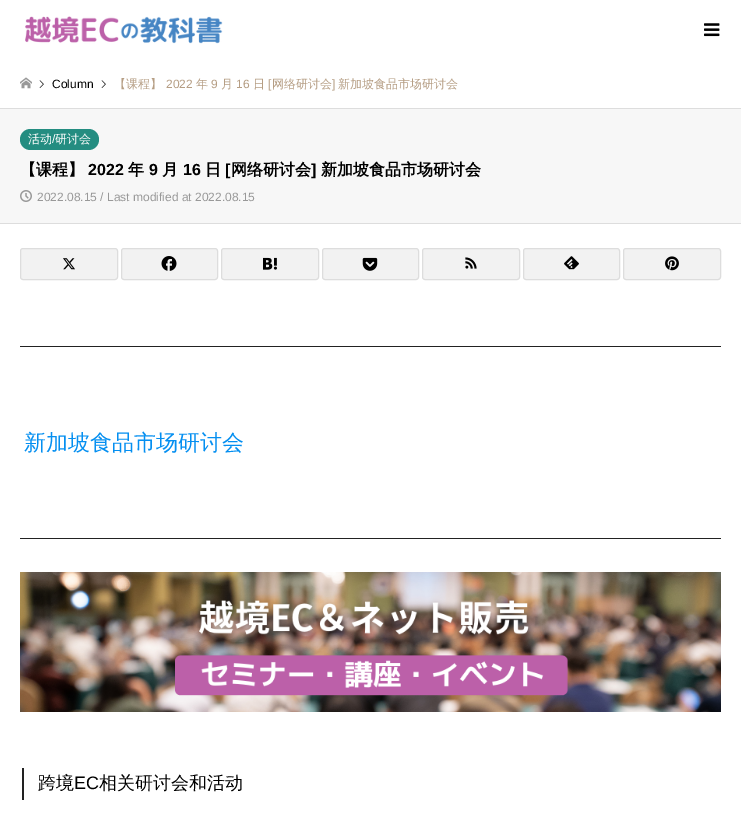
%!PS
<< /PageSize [741 826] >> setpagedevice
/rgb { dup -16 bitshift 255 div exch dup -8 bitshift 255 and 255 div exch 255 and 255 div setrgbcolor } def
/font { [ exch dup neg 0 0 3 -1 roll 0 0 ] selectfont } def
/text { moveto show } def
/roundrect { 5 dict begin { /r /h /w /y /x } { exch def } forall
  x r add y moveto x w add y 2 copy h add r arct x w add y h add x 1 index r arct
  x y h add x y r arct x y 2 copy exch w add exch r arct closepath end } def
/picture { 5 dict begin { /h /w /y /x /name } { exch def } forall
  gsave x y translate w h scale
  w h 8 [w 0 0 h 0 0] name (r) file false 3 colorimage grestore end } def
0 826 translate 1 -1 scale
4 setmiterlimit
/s1 { /LiberationSans-Regular 12 font 16#000000 rgb } def
/s2 { /WenQuanYiZenHei-Medium 12 font 16#B69E84 rgb } def
/s3 { /LiberationSans-Regular 12 font 16#B69E84 rgb } def
/s4 { /WenQuanYiZenHei-Medium 12 font 16#FFFFFF rgb } def
/s5 { /LiberationSans-Regular 12 font 16#FFFFFF rgb } def
/s6 { /WenQuanYiZenHei-Bold 16 font 16#000000 rgb } def
/s7 { /LiberationSans-Bold 16 font 16#000000 rgb } def
/s8 { /LiberationSans-Regular 12 font 16#999999 rgb } def
/s9 { /WenQuanYiZenHei-Medium 22 font 16#048FF1 rgb } def
/s10 { /WenQuanYiZenHei-Medium 18 font 16#000000 rgb } def
/s11 { /LiberationSans-Regular 18 font 16#000000 rgb } def
16#FFFFFF rgb
0 0 741 826 rectfill
(pic1.raw) 25 16 198 28 picture
(pic2.raw) 704 23 16 14 picture
16#DDDDDD rgb
0 108 741 1 rectfill
(pic3.raw) 20 77 12 12 picture
(pic4.raw) 39 80 5 8 picture
s1
(Column) 52 88 text
(pic4.raw) 101 80 5 8 picture
s2
(【课程】) 114 88 text
s3
(2022) 166 88 text
s2
(年) 196 88 text
s3
(9) 211 88 text
s2
(月) 221 88 text
s3
(16) 236 88 text
s2
(日) 253 88 text
s3
([) 268 88 text
s2
(网络研讨会) 272 88 text
s3
(]) 332 88 text
s2
(新加坡食品市场研讨会) 338 88 text
16#F7F7F7 rgb
0 109 741 114 rectfill
16#DDDDDD rgb
0 223 741 1 rectfill
16#248D81 rgb
20 129 79 21 10.5 roundrect fill
s4
(活动) 28 143 text
s5
(/) 52 143 text
s4
(研讨会) 55 143 text
s6
(【课程】) 20 175 text
s7
(2022) 88 175 text
s6
(年) 128 175 text
s7
(9) 149 175 text
s6
(月) 162 175 text
s7
(16) 183 175 text
s6
(日) 205 175 text
s7
([) 225 175 text
s6
(网络研讨会) 231 175 text
s7
(]) 311 175 text
s6
(新加坡食品市场研讨会) 321 175 text
(pic5.raw) 20 190 12 12 picture
s8
(2022.08.15 / Last modified at 2022.08.15) 37 201 text
16#F2F2F2 rgb
20.5 248.5 97 31 2.5 roundrect gsave fill grestore
16#DDDDDD rgb
stroke
(pic6.raw) 63 258 12 12 picture
16#F2F2F2 rgb
121.5 248.5 96 31 2.5 roundrect gsave fill grestore
16#DDDDDD rgb
stroke
(pic7.raw) 161 256 16 15 picture
16#F2F2F2 rgb
221.5 248.5 97 31 2.5 roundrect gsave fill grestore
16#DDDDDD rgb
stroke
(pic8.raw) 263 257 14 13 picture
16#F2F2F2 rgb
322.5 248.5 96 31 2.5 roundrect gsave fill grestore
16#DDDDDD rgb
stroke
(pic9.raw) 362 257 16 14 picture
16#F2F2F2 rgb
422.5 248.5 97 31 2.5 roundrect gsave fill grestore
16#DDDDDD rgb
stroke
(pic10.raw) 465 257 12 12 picture
16#F2F2F2 rgb
523.5 248.5 96 31 2.5 roundrect gsave fill grestore
16#DDDDDD rgb
stroke
(pic11.raw) 564 256 15 14 picture
16#F2F2F2 rgb
623.5 248.5 97 31 2.5 roundrect gsave fill grestore
16#DDDDDD rgb
stroke
(pic12.raw) 665 256 14 15 picture
16#222222 rgb
20 346 701 1 rectfill
20 538 701 1 rectfill
s9
(新加坡食品市场研讨会) 24 450 text
(pic13.raw) 20 572 701 140 picture
16#222222 rgb
22 768 2 32 rectfill
s10
(跨境) 38 789 text
s11
(EC) 74 789 text
s10
(相关研讨会和活动) 99 789 text
showpage
